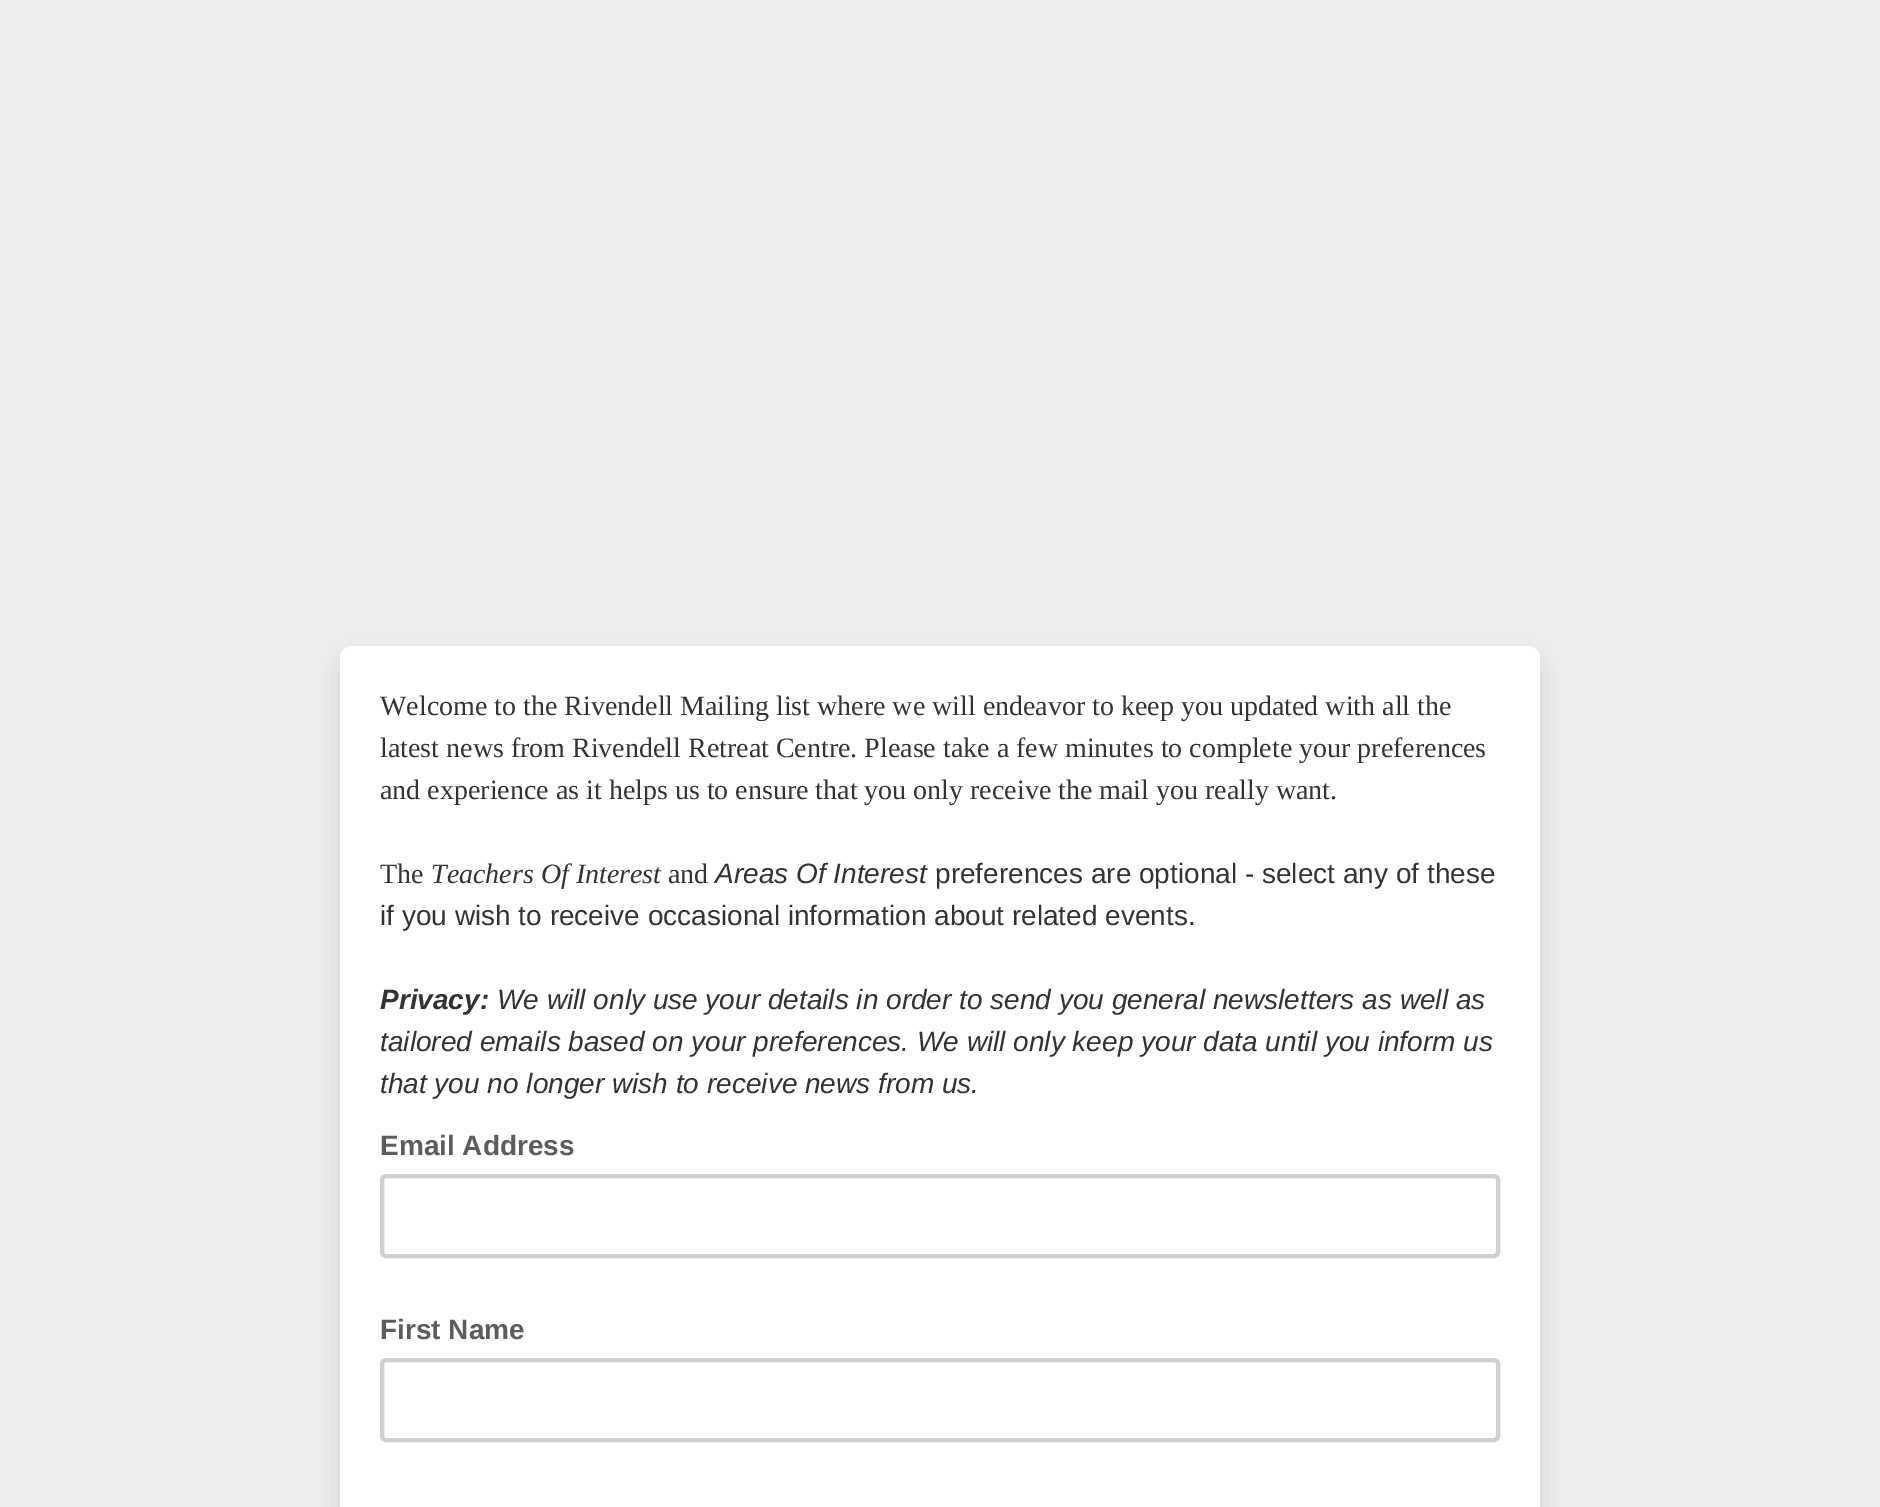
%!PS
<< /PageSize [1880 1507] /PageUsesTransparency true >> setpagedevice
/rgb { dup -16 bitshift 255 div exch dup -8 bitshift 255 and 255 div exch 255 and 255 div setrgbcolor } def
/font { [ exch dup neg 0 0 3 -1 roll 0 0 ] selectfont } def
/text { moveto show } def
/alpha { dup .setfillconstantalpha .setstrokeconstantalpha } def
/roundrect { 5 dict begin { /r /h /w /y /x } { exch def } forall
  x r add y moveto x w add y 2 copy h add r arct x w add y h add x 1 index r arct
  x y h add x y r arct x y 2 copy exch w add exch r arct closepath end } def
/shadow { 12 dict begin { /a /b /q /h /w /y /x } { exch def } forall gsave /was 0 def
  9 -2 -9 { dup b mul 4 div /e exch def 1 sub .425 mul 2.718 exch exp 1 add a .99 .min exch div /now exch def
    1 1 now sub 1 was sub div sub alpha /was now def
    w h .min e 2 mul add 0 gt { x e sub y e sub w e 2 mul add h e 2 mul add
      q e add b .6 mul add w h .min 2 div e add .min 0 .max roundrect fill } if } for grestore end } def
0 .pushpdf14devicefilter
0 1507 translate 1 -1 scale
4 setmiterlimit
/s1 { /LiberationSerif-Regular 28 font 16#333333 rgb } def
/s2 { /LiberationSerif-Italic 28 font 16#333333 rgb } def
/s3 { /LiberationSans-Italic 28 font 16#333333 rgb } def
/s4 { /LiberationSans-Regular 28 font 16#333333 rgb } def
/s5 { /LiberationSans-BoldItalic 28 font 16#333333 rgb } def
/s6 { /LiberationSans-Bold 28 font 16#5D5D5D rgb } def
16#EEEEEE rgb
0 0 1880 1507 rectfill
16#0D1216 rgb
340 658 1200 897 12 12 0.12 shadow
16#FFFFFF rgb
340 646 1200 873 12 roundrect fill
s1
(Welcome to the Rivendell Mailing list where we will endeavor to keep you updated with all the) 380 715 text
(latest news from Rivendell Retreat Centre. Please take a few minutes to complete your preferences) 380 757 text
(and experience as it helps us to ensure that you only receive the mail you really want.) 380 799 text
(The) 380 883 text
s2
(Teachers Of Interest) 431 883 text
s1
(and) 668 883 text
s3
(Areas Of Interest) 715 883 text
s4
(preferences are optional - select any of these) 935 883 text
(if you wish to receive occasional information about related events.) 380 925 text
s5
(Privacy:) 380 1009 text
s3
(We will only use your details in order to send you general newsletters as well as) 497 1009 text
(tailored emails based on your preferences. We will only keep your data until you inform us) 380 1051 text
(that you no longer wish to receive news from us.) 380 1093 text
s6
(Email Address) 380 1155 text
16#D0D0D0 rgb
4 setlinewidth
382 1176 1116 80 4 roundrect stroke
s6
(First Name) 380 1339 text
16#D0D0D0 rgb
382 1360 1116 80 4 roundrect stroke
.poppdf14devicefilter showpage
